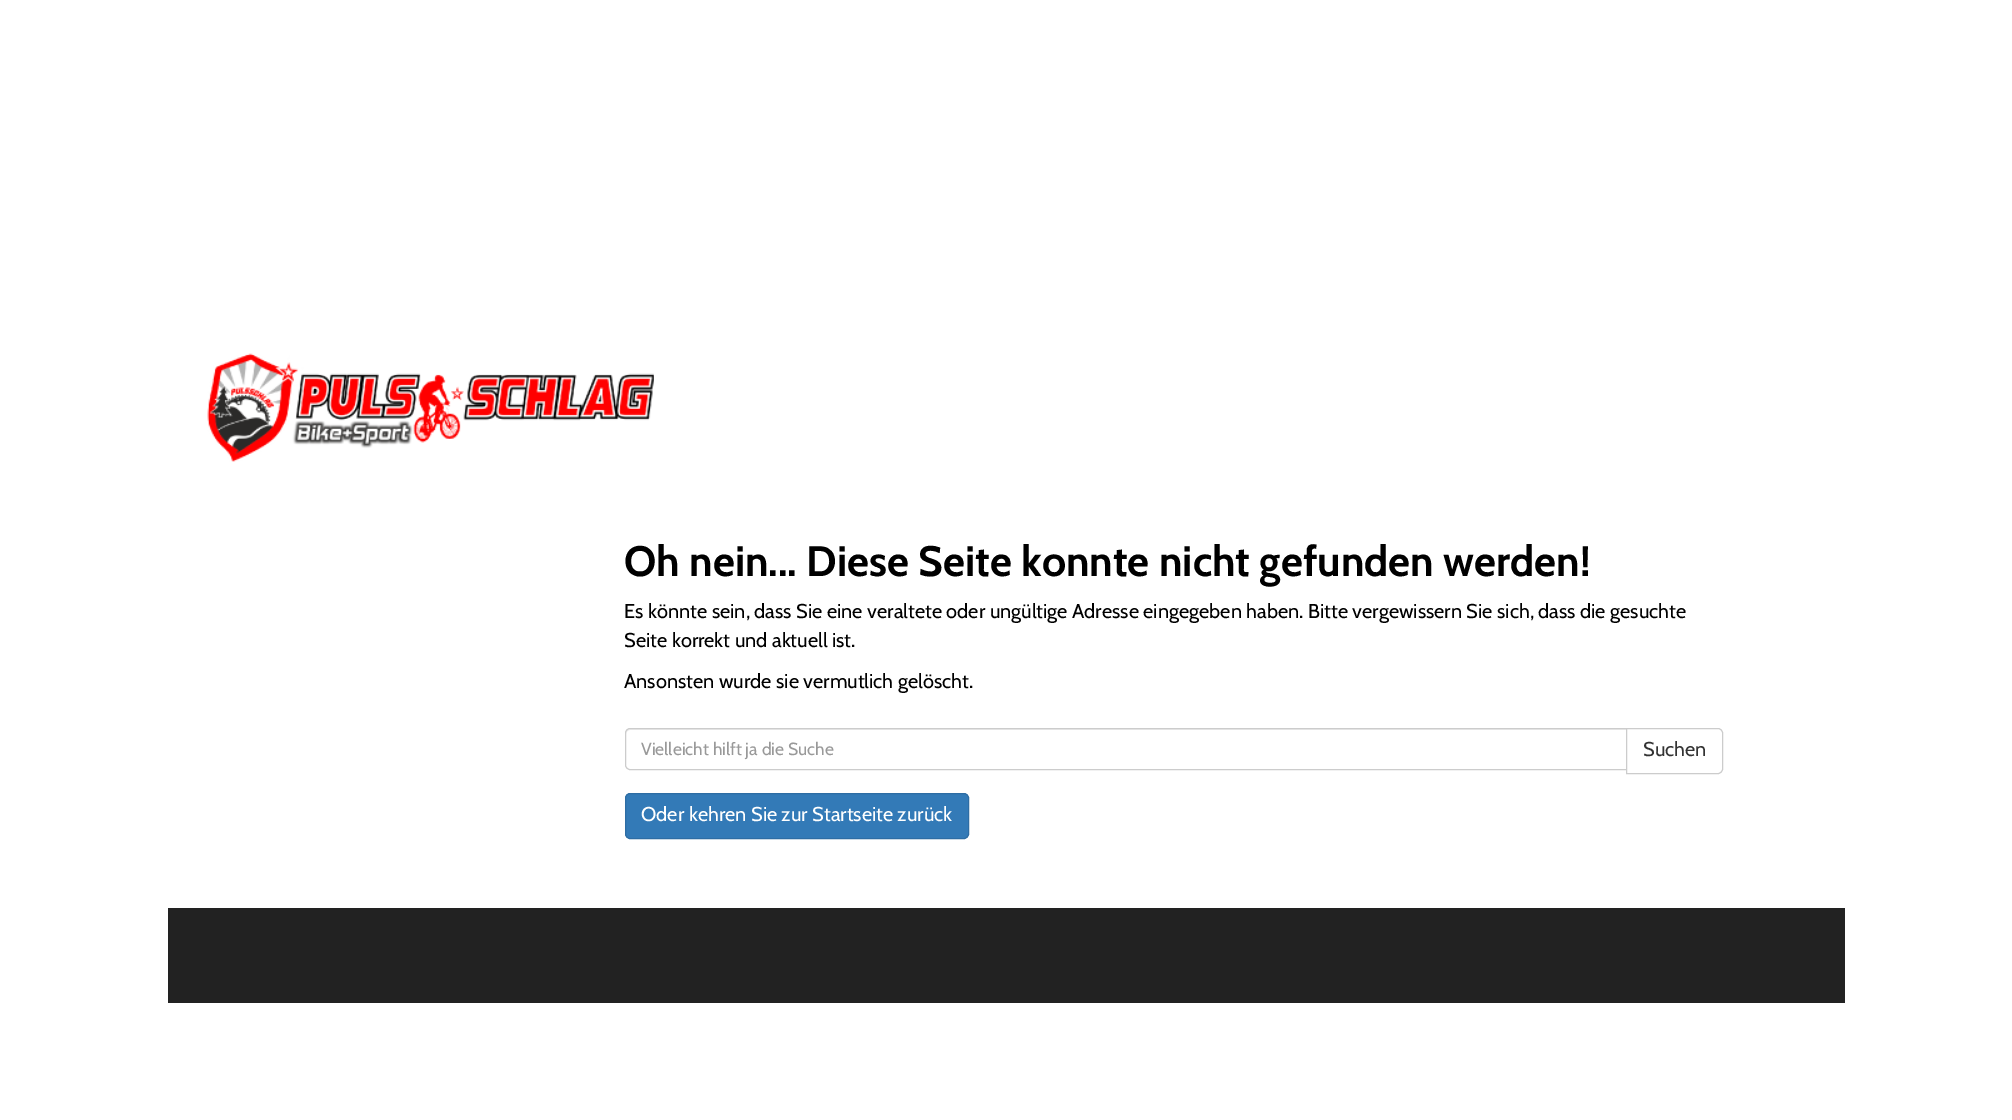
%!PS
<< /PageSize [2012 1120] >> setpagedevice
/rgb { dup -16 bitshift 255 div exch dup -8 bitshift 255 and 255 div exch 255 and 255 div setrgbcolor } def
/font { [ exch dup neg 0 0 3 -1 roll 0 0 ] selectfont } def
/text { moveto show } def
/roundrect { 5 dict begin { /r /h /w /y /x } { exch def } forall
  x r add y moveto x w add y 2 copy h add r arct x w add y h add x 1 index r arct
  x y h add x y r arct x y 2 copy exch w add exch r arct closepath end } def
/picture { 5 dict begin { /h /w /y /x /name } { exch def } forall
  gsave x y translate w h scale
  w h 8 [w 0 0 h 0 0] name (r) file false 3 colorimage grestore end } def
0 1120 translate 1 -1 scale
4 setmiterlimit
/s1 { /Cabin-Bold 42.5 font 16#000000 rgb } def
/s2 { /Cabin-Regular 20 font 16#000000 rgb } def
/s3 { /Cabin-Regular 17.5 font 16#999999 rgb } def
/s4 { /Cabin-Regular 20 font 16#333333 rgb } def
/s5 { /Cabin-Regular 20 font 16#FFFFFF rgb } def
16#FFFFFF rgb
0 0 2012 1120 rectfill
(pic1.raw) 207 353 447 109 picture
s1
(Oh nein... Diese Seite konnte nicht gefunden werden!) 624 576 text
s2
(Es könnte sein, dass Sie eine veraltete oder ungültige Adresse eingegeben haben. Bitte vergewissern Sie sich, dass die gesuchte) 624 618 text
(Seite korrekt und aktuell ist.) 624 647 text
(Ansonsten wurde sie vermutlich gelöscht.) 624 688 text
16#ECECEC rgb
630 730 moveto 1626 730 lineto 1626 729 lineto 630 729 lineto 627 729 626 731 626 734 curveto 626 732 628 730 630 730 curveto closepath fill
16#CCCCCC rgb
630 728.5 moveto 1627.5 728.5 lineto 1627.5 769.5 lineto 630 769.5 lineto 627.5 769.5 625.5 767.5 625.5 765 curveto 625.5 733 lineto 625.5 730.5 627.5 728.5 630 728.5 curveto closepath stroke
s3
(Vielleicht hilft ja die Suche) 641 755 text
16#FFFFFF rgb
1626.5 728.5 moveto 1718 728.5 lineto 1720.5 728.5 1722.5 730.5 1722.5 733 curveto 1722.5 769 lineto 1722.5 771.5 1720.5 773.5 1718 773.5 curveto 1626.5 773.5 lineto closepath gsave fill grestore
16#CCCCCC rgb
stroke
s4
(Suchen) 1643 756 text
16#337AB7 rgb
625.5 793.5 343 45 4.5 roundrect gsave fill grestore
16#2E6DA4 rgb
stroke
s5
(Oder kehren Sie zur Startseite zurück) 641 821 text
16#222222 rgb
168 908 1677 95 rectfill
showpage
